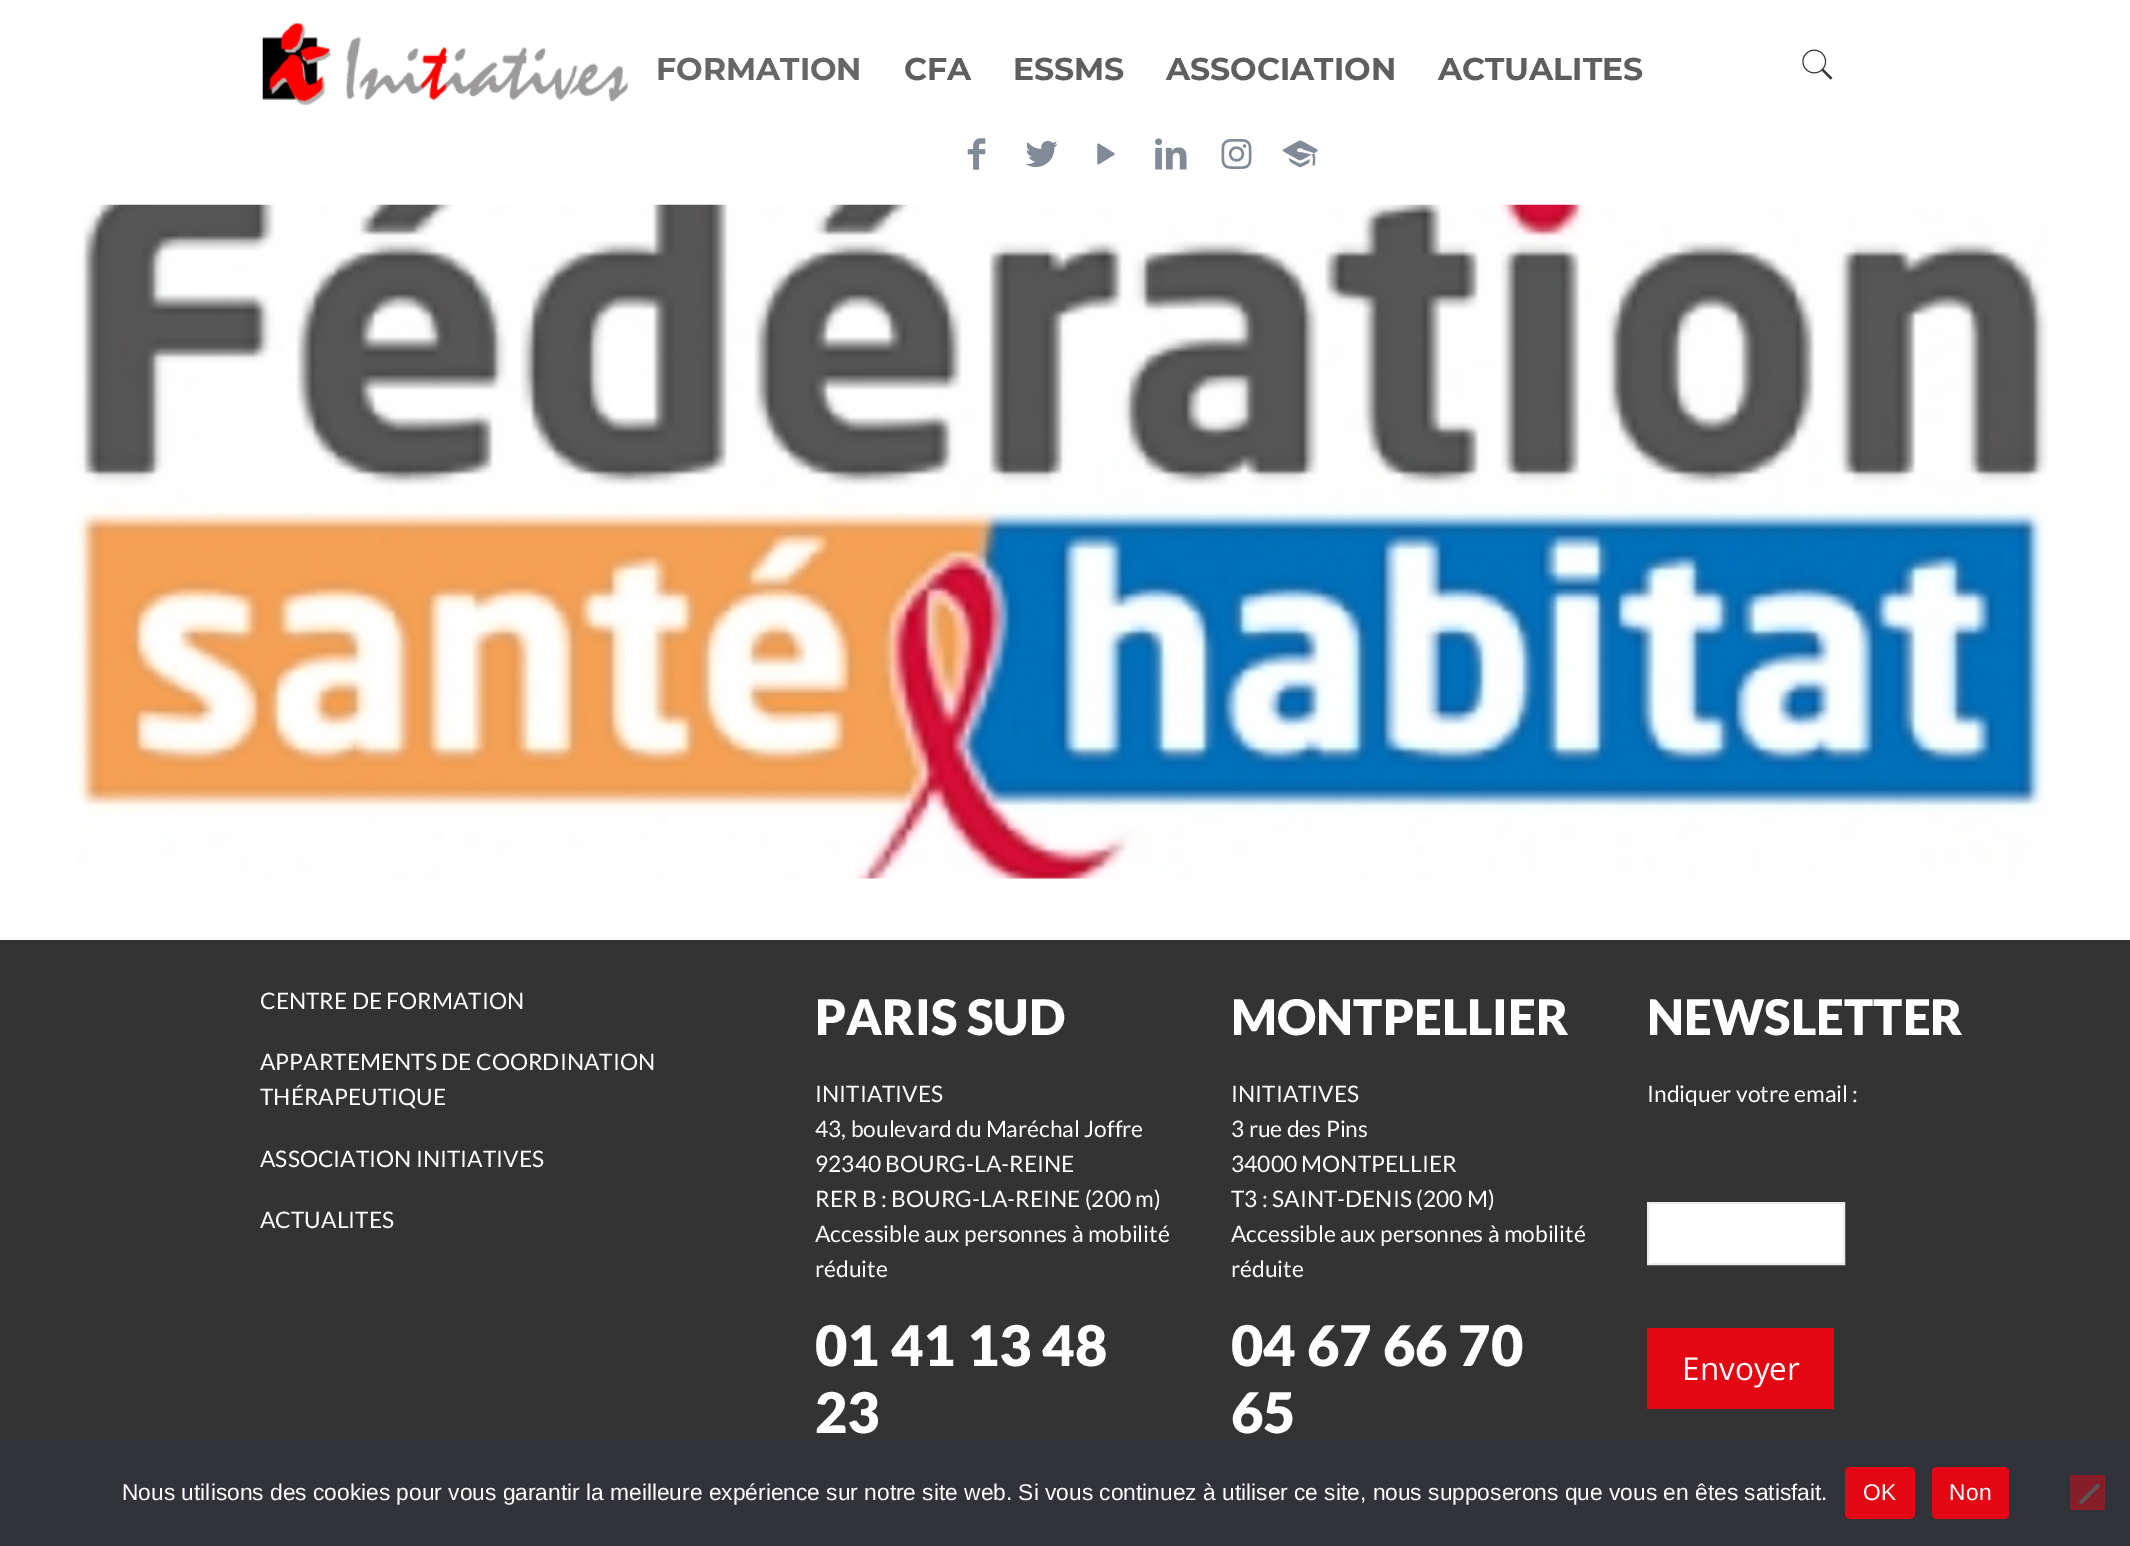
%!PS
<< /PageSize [2130 1546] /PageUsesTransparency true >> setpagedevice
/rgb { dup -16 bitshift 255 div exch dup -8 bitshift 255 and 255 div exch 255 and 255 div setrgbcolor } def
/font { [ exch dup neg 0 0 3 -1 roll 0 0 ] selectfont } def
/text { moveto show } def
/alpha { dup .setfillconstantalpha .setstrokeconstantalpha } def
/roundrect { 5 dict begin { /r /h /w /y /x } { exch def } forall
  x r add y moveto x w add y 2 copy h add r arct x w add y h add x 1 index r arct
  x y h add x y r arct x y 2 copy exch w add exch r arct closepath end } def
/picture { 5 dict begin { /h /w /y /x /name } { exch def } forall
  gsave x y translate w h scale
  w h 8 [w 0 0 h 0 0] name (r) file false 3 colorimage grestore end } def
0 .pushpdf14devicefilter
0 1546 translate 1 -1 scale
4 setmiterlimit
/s1 { /Montserrat-Bold 31.5 font 16#666666 rgb } def
/s2 { /Montserrat-Bold 31.5 font 16#5E5E5E rgb } def
/s3 { /Lato-Regular 22.75 font 16#FFFFFF rgb } def
/s4 { /Lato-Black 49 font 16#FFFFFF rgb } def
/s5 { /Lato-Black 56 font 16#FFFFFF rgb } def
/s6 { /OpenSans-Regular 31.5 font 16#FFFFFF rgb } def
/s7 { /LiberationSans-Regular 22.75 font 16#FFFFFF rgb } def
16#FFFFFF rgb
0 0 2130 1546 rectfill
(pic1.raw) 262 23 366 82 picture
s1
(FORMATION) 656 80 text
s2
(CFA) 904 80 text
(ESSMS) 1013 80 text
(ASSOCIATION) 1166 80 text
(ACTUALITES) 1438 80 text
(pic2.raw) 967 138 19 32 picture
(pic3.raw) 1025 140 33 27 picture
(pic4.raw) 1097 143 18 22 picture
(pic5.raw) 1155 138 32 32 picture
(pic6.raw) 1221 139 31 30 picture
(pic7.raw) 1282 140 36 28 picture
(pic8.raw) 1802 49 31 31 picture
(pic9.raw) 76 204 1972 675 picture
16#333333 rgb
0 940 2130 500 rectfill
s3
(CENTRE DE FORMATION) 260 1009 text
(APPARTEMENTS DE COORDINATION) 260 1070 text
(THÉRAPEUTIQUE) 260 1105 text
(ASSOCIATION INITIATIVES) 260 1167 text
(ACTUALITES) 260 1228 text
s4
(PARIS SUD) 815 1035 text
s3
(INITIATIVES) 815 1102 text
(43, boulevard du Maréchal Joffre) 815 1137 text
(92340 BOURG-LA-REINE) 815 1172 text
(RER B : BOURG-LA-REINE \(200 m\)) 815 1207 text
(Accessible aux personnes à mobilité) 815 1242 text
(réduite) 815 1277 text
s5
(01 41 13 48) 815 1366 text
(23) 815 1433 text
s4
(MONTPELLIER) 1231 1035 text
s3
(INITIATIVES) 1231 1102 text
(3 rue des Pins) 1231 1137 text
(34000 MONTPELLIER) 1231 1172 text
(T3 : SAINT-DENIS \(200 M\)) 1231 1207 text
(Accessible aux personnes à mobilité) 1231 1242 text
(réduite) 1231 1277 text
s5
(04 67 66 70) 1231 1366 text
(65) 1231 1433 text
s4
(NEWSLETTER) 1647 1035 text
s3
(Indiquer votre email :) 1647 1102 text
1648 1203 moveto 1844 1203 lineto 1844 1264 lineto 1648 1264 lineto closepath gsave fill grestore
16#EBEBEB rgb
2 setlinewidth
stroke
16#E30613 rgb
1647 1328 187 81 rectfill
s6
(Envoyer) 1682 1380 text
16#32323A rgb
0 1440 2130 106 rectfill
s7
(Nous utilisons des cookies pour vous garantir la meilleure expérience sur notre site web. Si vous continuez à utiliser ce site, nous supposerons que vous en êtes satisfait.) 122 1500 text
16#E30613 rgb
1845 1467 70 52 5 roundrect fill
16#FFFFFF rgb
1863 1500 moveto 0.5 0 (OK) ashow
16#E30613 rgb
1932 1467 77 52 5 roundrect fill
16#FFFFFF rgb
1949 1500 moveto 0.5 0 (Non) ashow
16#8B1C27 rgb
2070 1475 35 35 rectfill
16#59595D rgb
2097.5 1483.5 moveto 2100 1486 lineto 2081.5 1504.5 lineto 2079 1502 lineto closepath fill
gsave
2070 1475 35 35 rectclip
0.07 alpha
16#32323A rgb
2063 1493 moveto 2088 1468 lineto 2112 1493 lineto 2088 1518 lineto closepath fill
grestore
.poppdf14devicefilter showpage
